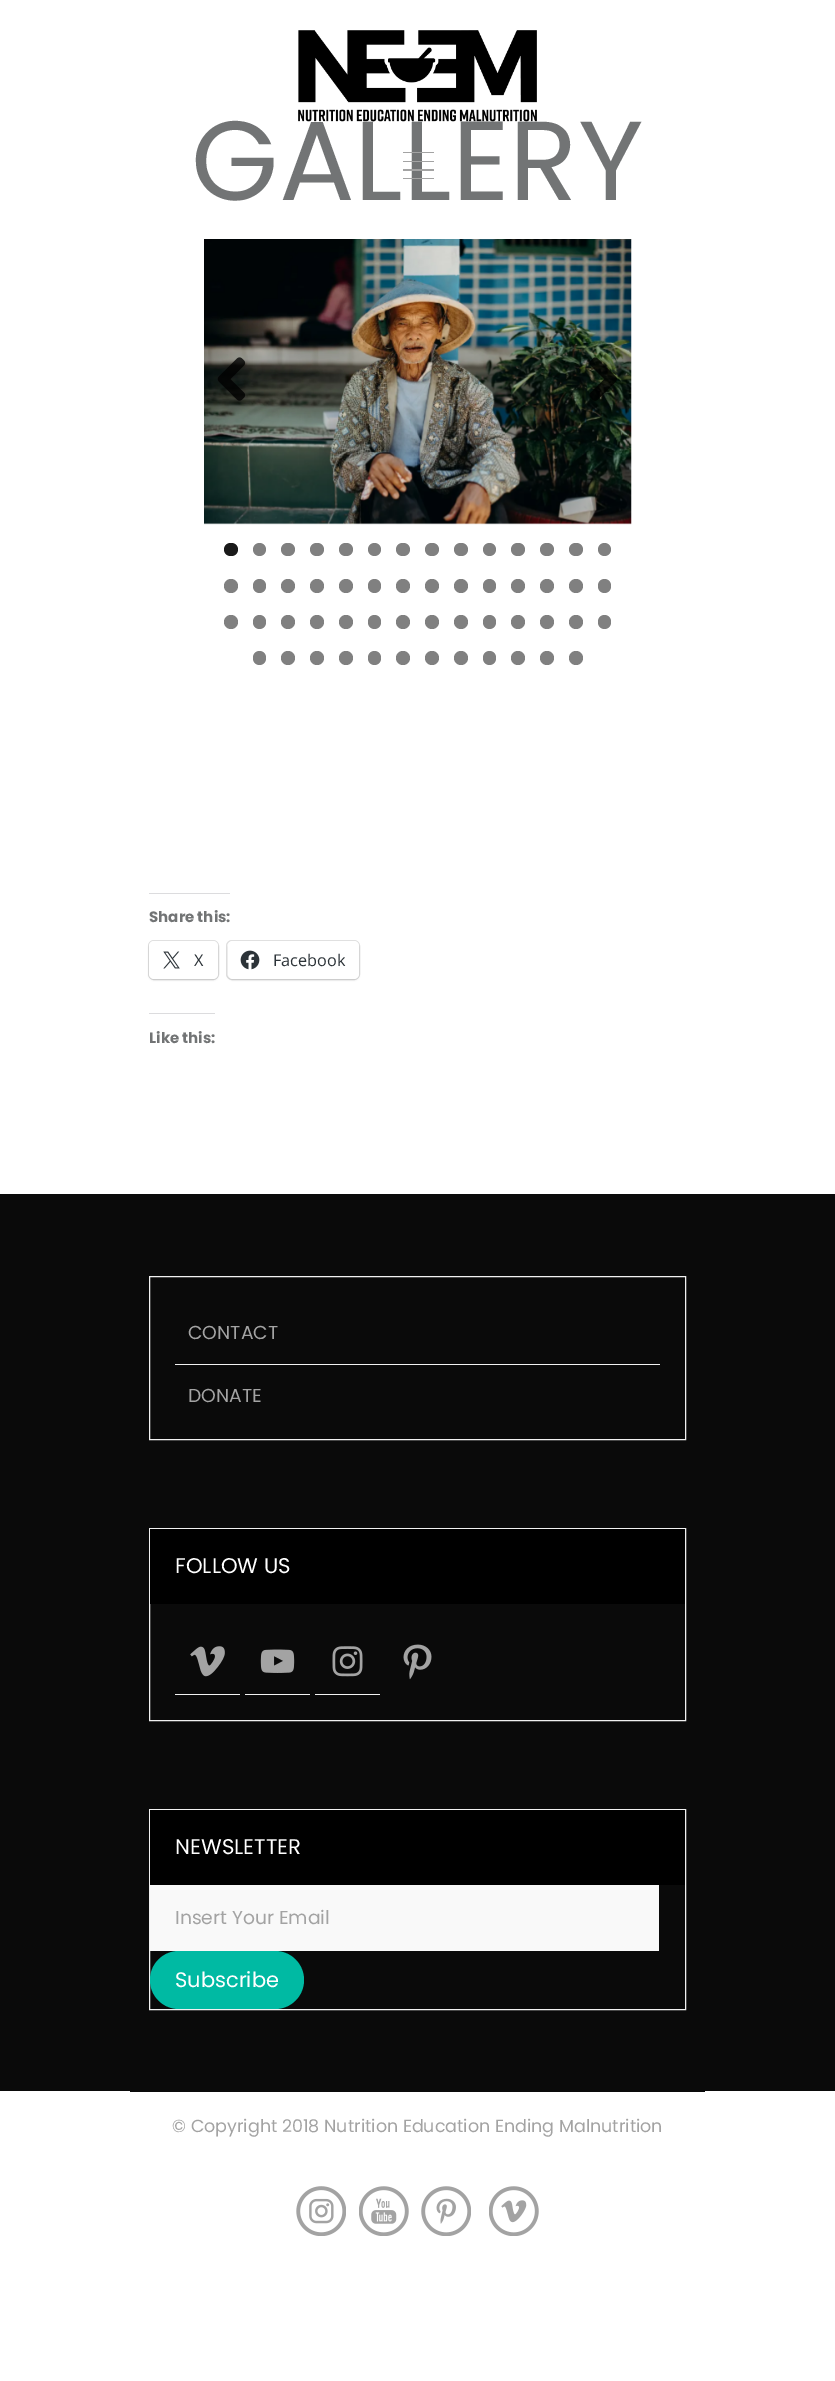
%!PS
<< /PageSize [835 2381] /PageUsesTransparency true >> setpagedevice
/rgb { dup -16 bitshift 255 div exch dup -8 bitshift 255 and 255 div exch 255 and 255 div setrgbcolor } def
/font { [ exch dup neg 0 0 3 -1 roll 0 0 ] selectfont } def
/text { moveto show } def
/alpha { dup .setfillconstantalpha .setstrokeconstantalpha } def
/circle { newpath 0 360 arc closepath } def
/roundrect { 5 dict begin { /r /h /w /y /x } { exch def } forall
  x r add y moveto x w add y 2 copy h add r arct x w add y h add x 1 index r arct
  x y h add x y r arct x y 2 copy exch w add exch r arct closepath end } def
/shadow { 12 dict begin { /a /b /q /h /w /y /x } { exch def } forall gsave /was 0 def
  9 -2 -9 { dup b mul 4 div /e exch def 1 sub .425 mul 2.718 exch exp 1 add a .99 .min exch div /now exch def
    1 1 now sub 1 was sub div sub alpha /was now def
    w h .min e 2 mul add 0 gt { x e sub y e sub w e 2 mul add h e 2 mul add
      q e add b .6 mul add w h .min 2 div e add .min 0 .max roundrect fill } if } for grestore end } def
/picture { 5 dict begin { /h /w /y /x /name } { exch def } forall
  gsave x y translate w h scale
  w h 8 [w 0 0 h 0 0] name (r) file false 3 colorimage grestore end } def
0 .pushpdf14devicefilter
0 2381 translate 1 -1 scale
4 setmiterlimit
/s1 { /Poppins-Regular 112.5 font 16#727475 rgb } def
/s2 { /Poppins-Bold 15 font 16#727475 rgb } def
/s3 { /OpenSans-Regular 16.25 font 16#2C3338 rgb } def
/s4 { /Poppins-Regular 18.75 font 16#A3A3A3 rgb } def
/s5 { /Poppins-Regular 21.25 font 16#FFFFFF rgb } def
/s6 { /Poppins-Regular 21 font 16#FFFFFF rgb } def
/s7 { /Poppins-Regular 17.5 font 16#A3A3A3 rgb } def
16#FFFFFF rgb
0 0 835 2381 rectfill
s1
(GALLERY) 191 200 text
(pic1.raw) 298 30 239 92 picture
16#A3A3A3 rgb
403 152 31 1 rectfill
403 161 31 1 rectfill
403 169 31 2 rectfill
403 178 31 1 rectfill
(pic2.raw) 204 239 428 286 picture
(pic3.raw) 217 357 29 44 picture
(pic4.raw) 589 357 28 44 picture
16#1A1A1A rgb
224 543 14 13 6.5 roundrect fill
16#808080 rgb
259.5 549.5 6.5 circle fill
281 543 14 13 6.5 roundrect fill
310 543 14 13 6.5 roundrect fill
339 543 14 13 6.5 roundrect fill
374.5 549.5 6.5 circle fill
396 543 14 13 6.5 roundrect fill
425 543 14 13 6.5 roundrect fill
454 543 14 13 6.5 roundrect fill
489.5 549.5 6.5 circle fill
511 543 14 13 6.5 roundrect fill
540 543 14 13 6.5 roundrect fill
569 543 14 13 6.5 roundrect fill
604.5 549.5 6.5 circle fill
231 586 7 circle fill
253 579 13 14 6.5 roundrect fill
288 586 7 circle fill
317 586 7 circle fill
346 586 7 circle fill
368 579 13 14 6.5 roundrect fill
403 586 7 circle fill
432 586 7 circle fill
461 586 7 circle fill
483 579 13 14 6.5 roundrect fill
518 586 7 circle fill
547 586 7 circle fill
576 586 7 circle fill
598 579 13 14 6.5 roundrect fill
231 622 7 circle fill
253 615 13 14 6.5 roundrect fill
288 622 7 circle fill
317 622 7 circle fill
346 622 7 circle fill
368 615 13 14 6.5 roundrect fill
403 622 7 circle fill
432 622 7 circle fill
461 622 7 circle fill
483 615 13 14 6.5 roundrect fill
518 622 7 circle fill
547 622 7 circle fill
576 622 7 circle fill
598 615 13 14 6.5 roundrect fill
253 651 13 14 6.5 roundrect fill
288 658 7 circle fill
317 658 7 circle fill
346 658 7 circle fill
368 651 13 14 6.5 roundrect fill
403 658 7 circle fill
432 658 7 circle fill
461 658 7 circle fill
483 651 13 14 6.5 roundrect fill
518 658 7 circle fill
547 658 7 circle fill
576 658 7 circle fill
16#DCDCDE rgb
149 893 81 1 rectfill
s2
(Share this:) 149 922 text
16#E0E0E0 rgb
148.5 940.5 70 39 5.5 roundrect stroke
16#000000 rgb
149 943 69 37 5 1 0.12 shadow
16#FFFFFF rgb
149 941 69 38 5 roundrect fill
(pic5.raw) 163 951 17 18 picture
s3
(X) 194 966 text
16#E0E0E0 rgb
226.5 940.5 133 39 5.5 roundrect stroke
16#000000 rgb
228 943 131 37 5 1 0.12 shadow
16#FFFFFF rgb
228 941 131 38 5 roundrect fill
(pic6.raw) 240 950 20 20 picture
s3
(Facebook) 273 966 text
16#DCDCDE rgb
149 1013 66 1 rectfill
s2
(Like this:) 149 1043 text
16#0A0A0A rgb
0 1194 835 897 rectfill
16#F1F1F1 rgb
149.5 1276.5 536 163 rectstroke
175 1364 485 1 rectfill
s4
(CONTACT) 188 1339 text
(DONATE) 188 1402 text
16#F1F1F1 rgb
149.5 1528.5 536 192 rectstroke
16#000000 rgb
150 1529 535 75 rectfill
s5
(FOLLOW US) 175 1573 text
16#F1F1F1 rgb
175 1694 65 1 rectfill
(pic7.raw) 190 1646 35 31 picture
245 1694 65 1 rectfill
(pic8.raw) 260 1649 35 24 picture
315 1694 65 1 rectfill
(pic9.raw) 332 1646 31 31 picture
(pic10.raw) 403 1644 29 36 picture
149.5 1809.5 536 200 rectstroke
16#000000 rgb
150 1810 535 75 rectfill
s5
(NEWSLETTER) 175 1854 text
16#F9F9F9 rgb
150 1885 509 66 rectfill
s4
(Insert Your Email) 175 1924 text
16#00BAA3 rgb
150 1951 154 58 29 roundrect fill
s6
(Subscribe) 175 1987 text
16#0A0A0A rgb
130 2091 575 1 rectfill
s7
(© Copyright 2018 Nutrition Education Ending Malnutrition) 172 2132 text
(pic11.raw) 296 2186 50 50 picture
(pic12.raw) 359 2186 50 50 picture
(pic13.raw) 421 2186 50 50 picture
(pic14.raw) 489 2186 50 50 picture
.poppdf14devicefilter showpage
